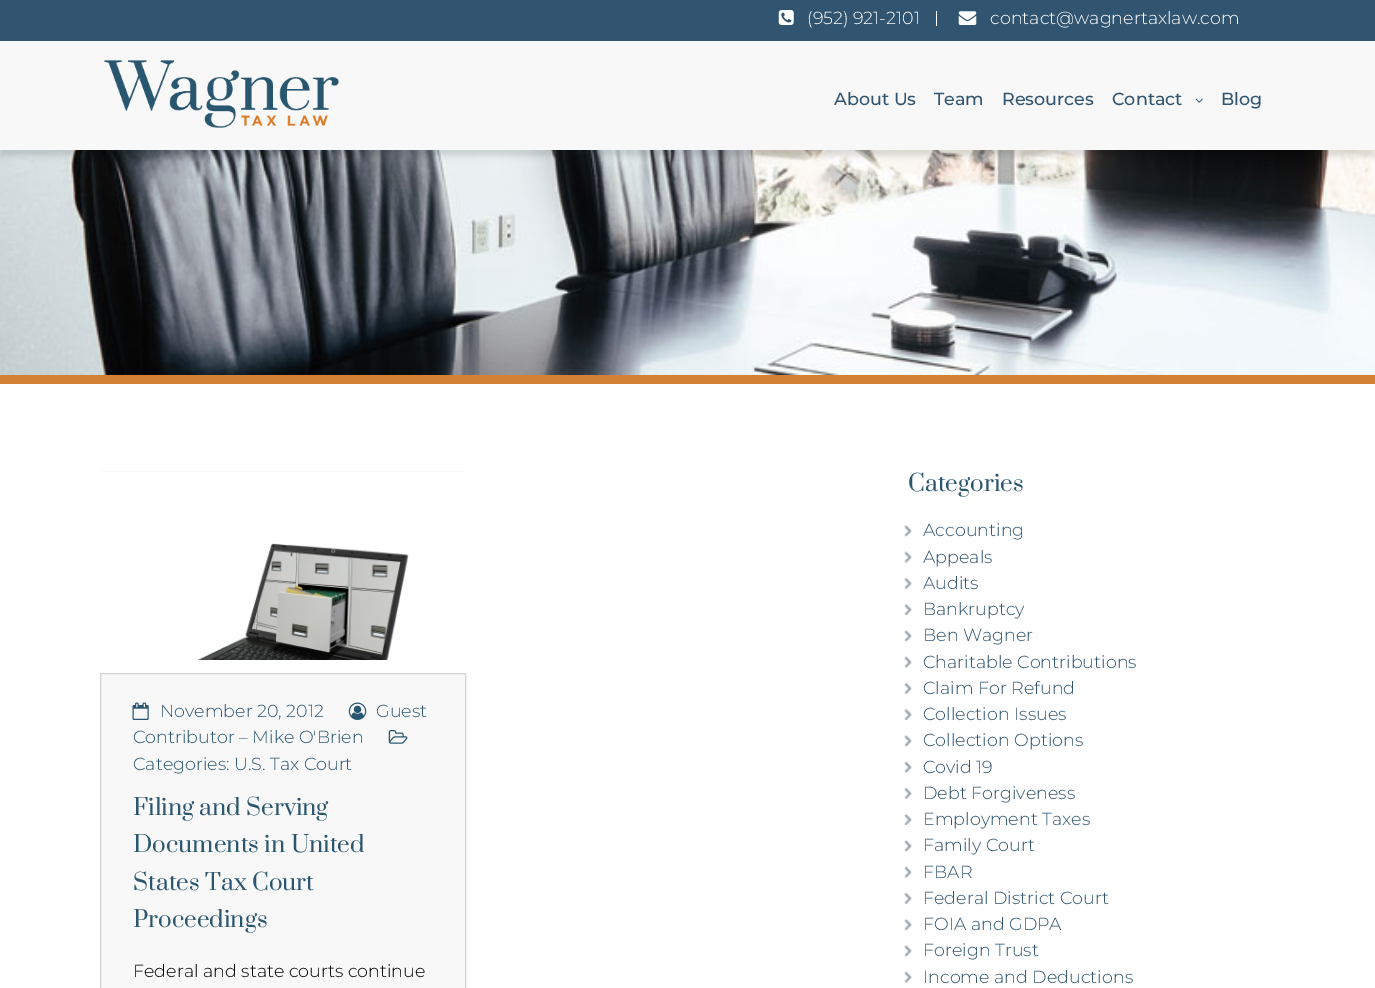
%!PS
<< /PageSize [1375 988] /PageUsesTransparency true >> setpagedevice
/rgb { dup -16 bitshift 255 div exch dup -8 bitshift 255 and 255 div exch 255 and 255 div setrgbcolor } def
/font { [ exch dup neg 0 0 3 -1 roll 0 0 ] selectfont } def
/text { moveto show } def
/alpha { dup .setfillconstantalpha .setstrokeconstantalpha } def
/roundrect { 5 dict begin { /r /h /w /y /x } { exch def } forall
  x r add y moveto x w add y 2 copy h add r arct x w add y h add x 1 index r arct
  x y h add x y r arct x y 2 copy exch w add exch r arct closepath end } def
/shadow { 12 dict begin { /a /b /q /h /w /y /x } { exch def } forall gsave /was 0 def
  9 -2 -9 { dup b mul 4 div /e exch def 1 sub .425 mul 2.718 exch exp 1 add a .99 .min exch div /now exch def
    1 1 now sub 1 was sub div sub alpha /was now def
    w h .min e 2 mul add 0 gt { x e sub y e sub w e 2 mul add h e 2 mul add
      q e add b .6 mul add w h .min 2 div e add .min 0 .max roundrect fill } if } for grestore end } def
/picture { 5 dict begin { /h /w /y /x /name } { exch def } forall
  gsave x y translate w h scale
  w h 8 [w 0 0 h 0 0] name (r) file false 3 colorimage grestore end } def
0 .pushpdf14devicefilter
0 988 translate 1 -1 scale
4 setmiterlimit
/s1 { /Montserrat-Light 17.5 font 16#FFFFFF rgb } def
/s2 { /Montserrat-Medium 17.5 font 16#315470 rgb } def
/s3 { /Montserrat-Light 17.5 font 16#2A566F rgb } def
/s4 { /Montserrat-Light 17.5 font 16#315470 rgb } def
/s5 { /Prata-Regular 22.5 font 16#2A566F rgb } def
/s6 { /Montserrat-Light 17.5 font 16#000000 rgb } def
16#315470 rgb
0 0 1375 988 rectfill
(pic1.raw) 778 10 16 15 picture
s1
(\(952\) 921-2101) 807 24 text
936 11 1 15 rectfill
(pic2.raw) 958 11 19 14 picture
(contact@wagnertaxlaw.com) 990 24 text
(pic5.raw) 0 150 1375 225 picture
16#0D0D0D rgb
0 48 1375 108 0 3 0.14 shadow
16#F8F8F8 rgb
0 41 1375 109 rectfill
(pic3.raw) 104 60 235 68 picture
s2
(About Us) 834 105 text
(Team) 934 105 text
(Resources) 1002 105 text
(Contact) 1112 105 text
(pic4.raw) 1195 98 8 5 picture
(Blog) 1221 105 text
16#D38235 rgb
0 375 1375 9 rectfill
16#FFFFFF rgb
0 384 1375 604 rectfill
(pic6.raw) 100 471 366 1 picture
(pic7.raw) 100 471 366 189 picture
16#F8F8F8 rgb
100.5 673.5 moveto 465.5 673.5 lineto 465.5 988.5 lineto 100.5 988.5 lineto closepath gsave fill grestore
16#D2D2D2 rgb
stroke
(pic8.raw) 348 702 19 18 picture
s3
(Guest) 376 717 text
(Contributor – Mike O'Brien) 133 743 text
(pic9.raw) 132 702 17 18 picture
s4
(November 20, 2012) 160 717 text
(pic10.raw) 388 730 20 14 picture
s3
(Categories: U.S. Tax Court) 133 770 text
s5
(Filing and Serving) 133 815 text
(Documents in United) 133 852 text
(States Tax Court) 133 890 text
(Proceedings) 133 927 text
s6
(Federal and state courts continue) 133 977 text
s5
(Categories) 908 491 text
(pic11.raw) 904 525 8 12 picture
s4
(Accounting) 923 536 text
(pic12.raw) 904 551 8 12 picture
(Appeals) 923 563 text
(pic13.raw) 903 577 9 12 picture
(Audits) 923 589 text
(pic14.raw) 904 603 8 12 picture
(Bankruptcy) 923 615 text
(pic11.raw) 904 630 8 12 picture
(Ben Wagner) 923 641 text
(pic12.raw) 904 656 8 12 picture
(Charitable Contributions) 923 668 text
(pic13.raw) 903 682 9 12 picture
(Claim For Refund) 923 694 text
(pic14.raw) 904 708 8 12 picture
(Collection Issues) 923 720 text
(pic11.raw) 904 735 8 12 picture
(Collection Options) 923 746 text
(pic12.raw) 904 761 8 12 picture
(Covid 19) 923 773 text
(pic13.raw) 903 787 9 12 picture
(Debt Forgiveness) 923 799 text
(pic14.raw) 904 813 8 12 picture
(Employment Taxes) 923 825 text
(pic11.raw) 904 840 8 12 picture
(Family Court) 923 851 text
(pic12.raw) 904 866 8 12 picture
(FBAR) 923 878 text
(pic13.raw) 903 892 9 12 picture
(Federal District Court) 923 904 text
(pic14.raw) 904 918 8 12 picture
(FOIA and GDPA) 923 930 text
(pic11.raw) 904 945 8 12 picture
(Foreign Trust) 923 956 text
(pic12.raw) 904 971 8 12 picture
(Income and Deductions) 923 983 text
.poppdf14devicefilter showpage
